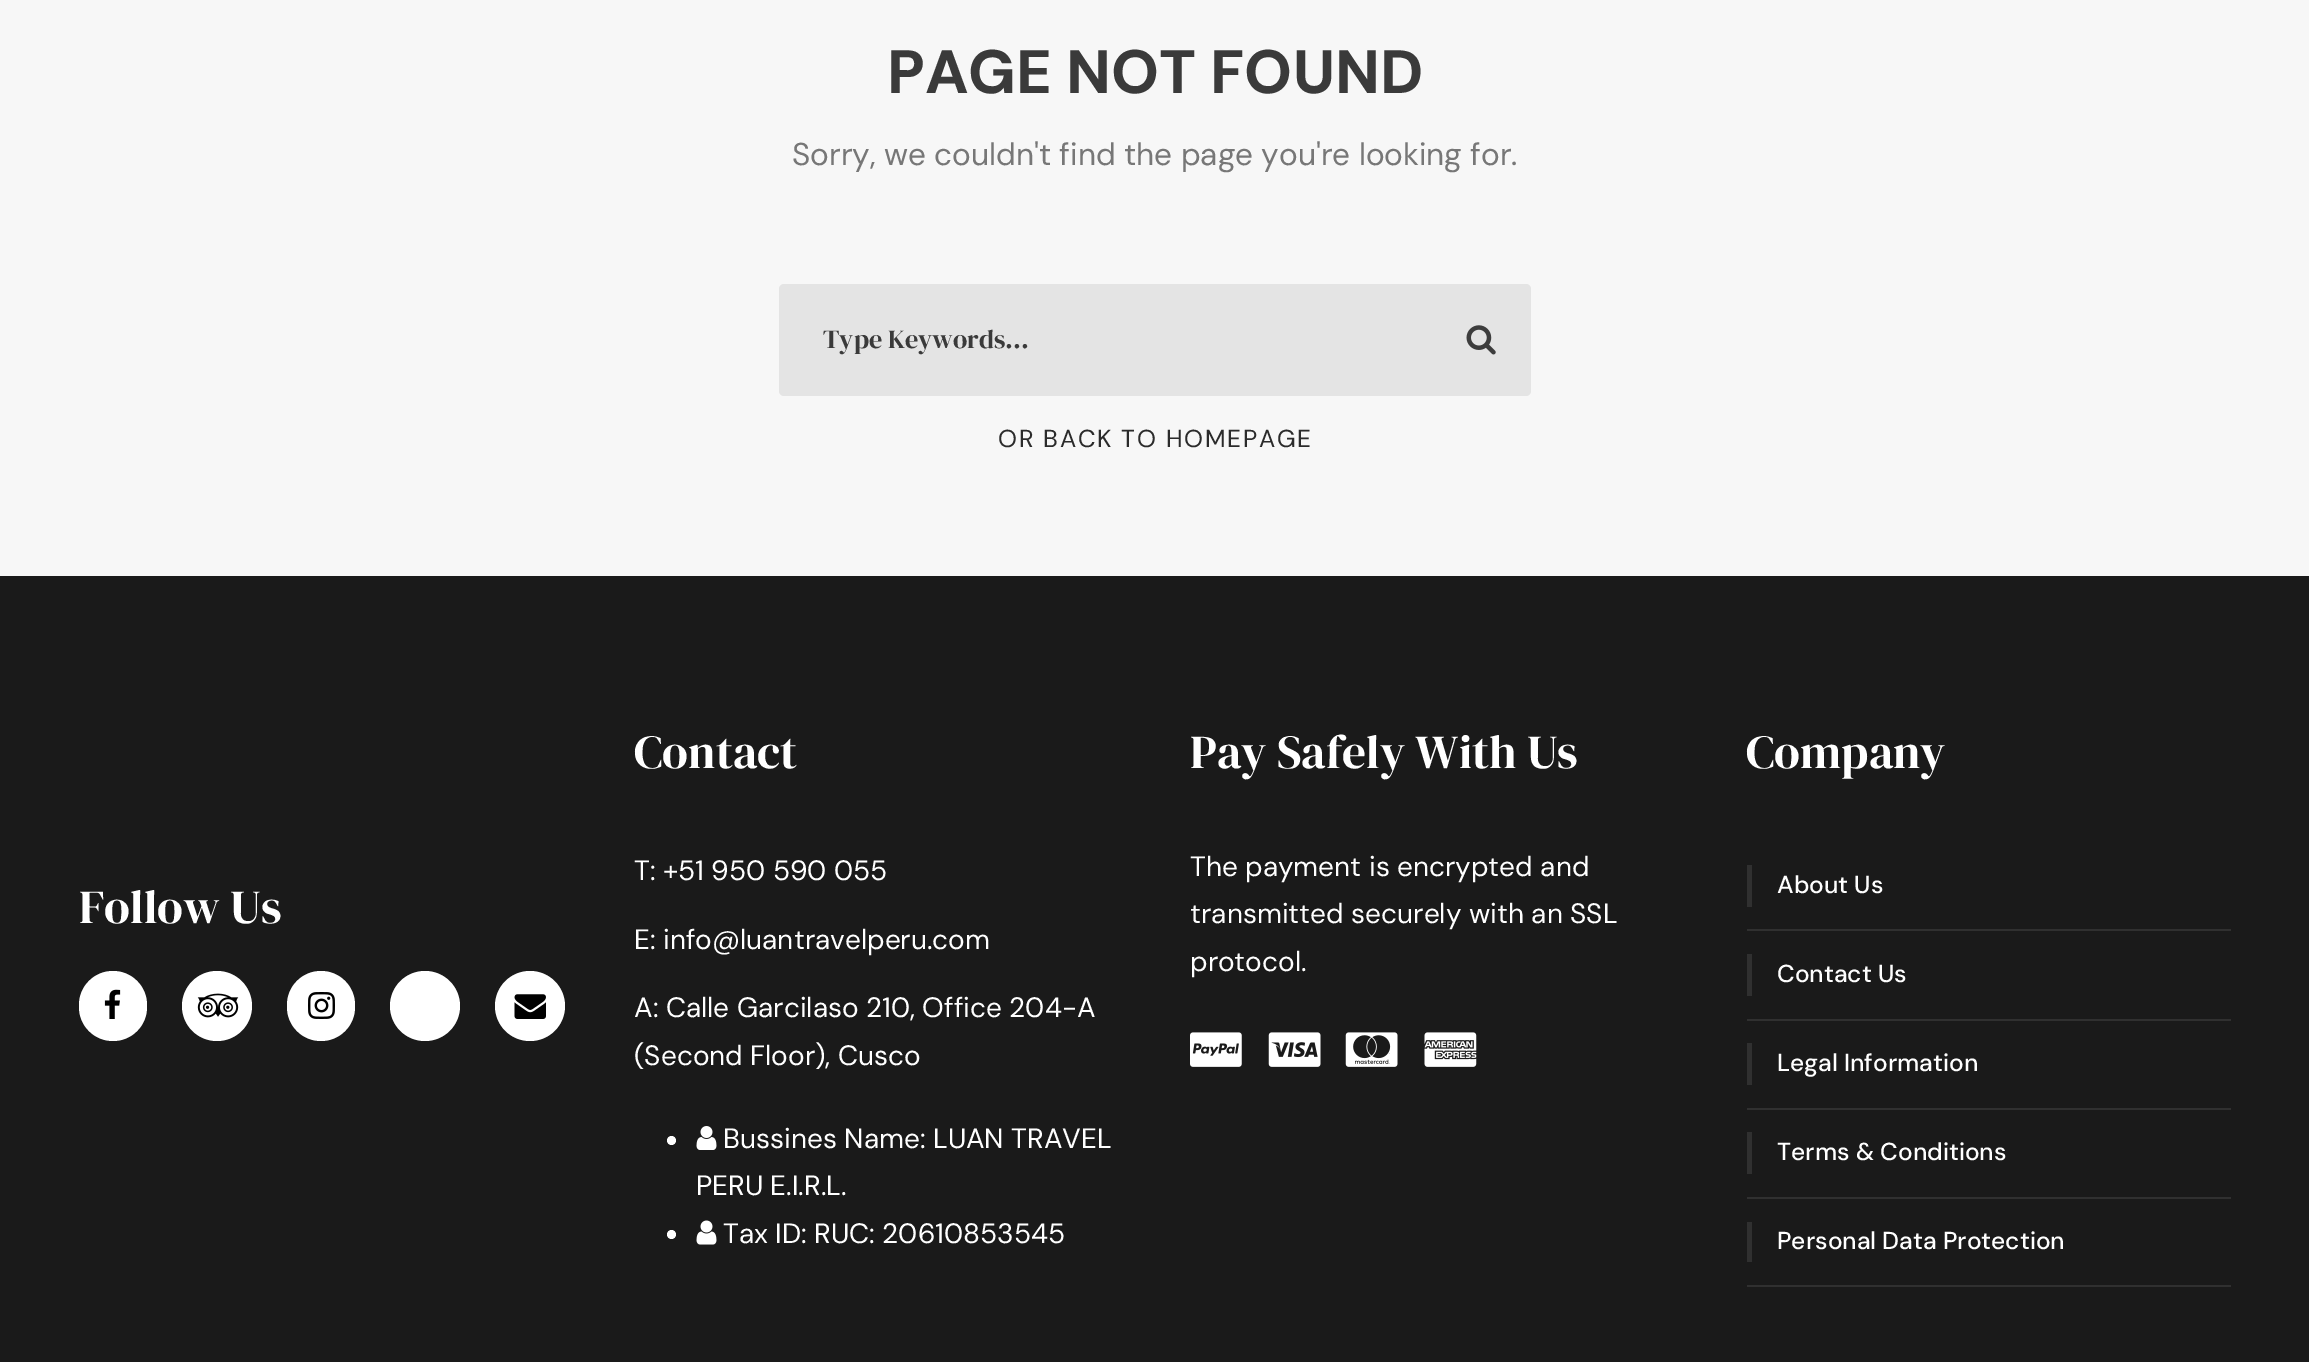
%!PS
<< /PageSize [2309 1362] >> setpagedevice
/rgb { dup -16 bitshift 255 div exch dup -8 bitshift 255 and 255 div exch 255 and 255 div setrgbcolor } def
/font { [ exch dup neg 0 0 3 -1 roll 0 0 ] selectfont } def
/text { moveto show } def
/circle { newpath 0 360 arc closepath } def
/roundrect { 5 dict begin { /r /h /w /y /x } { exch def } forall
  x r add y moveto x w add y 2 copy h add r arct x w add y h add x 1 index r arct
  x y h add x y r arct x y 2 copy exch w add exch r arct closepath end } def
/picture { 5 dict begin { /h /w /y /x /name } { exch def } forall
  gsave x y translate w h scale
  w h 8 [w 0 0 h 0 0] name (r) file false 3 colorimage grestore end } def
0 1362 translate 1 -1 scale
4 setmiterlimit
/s1 { /DMSans-ExtraBold 61.25 font 16#3A3A3A rgb } def
/s2 { /DMSans-Regular 31.5 font 16#777777 rgb } def
/s3 { /DMSerifDisplay-Regular 26.25 font 16#3A3A3A rgb } def
/s4 { /DMSerifDisplay-Regular 47.25 font 16#FFFFFF rgb } def
/s5 { /DMSans-Regular 28 font 16#FFFFFF rgb } def
/s6 { /DMSans-Medium 24.5 font 16#FFFFFF rgb } def
16#1A1A1A rgb
0 0 2309 1362 rectfill
16#F7F7F7 rgb
0 0 2309 576 rectfill
s1
(PAGE NOT FOUND) 887 93 text
s2
(Sorry, we couldn't find the page you're looking for.) 792 165 text
16#E4E4E4 rgb
779 284 752 112 5 roundrect fill
s3
(Type Keywords...) 823 348 text
(pic1.raw) 1466 325 30 30 picture
/DMSans-Regular 24.5 font
16#2B2B2B rgb
998 447 moveto 1.75 0 (OR BACK TO HOMEPAGE) ashow
s4
(Follow Us) 79 923 text
79 971 68 70 34 roundrect fill
(pic2.raw) 104 989 17 30 picture
217 1006 35 circle fill
(pic3.raw) 197 993 42 25 picture
287 971 68 70 34 roundrect fill
(pic4.raw) 308 992 27 27 picture
425 1006 35 circle fill
530 1006 35 circle fill
(pic5.raw) 514 994 32 25 picture
(Contact) 634 768 text
s5
(T: +51 950 590 055) 634 880 text
(E: info@luantravelperu.com) 634 949 text
(A: Calle Garcilaso 210, Office 204-A) 634 1017 text
(\(Second Floor\), Cusco) 634 1065 text
671.5 1140.5 4.5 circle fill
(pic6.raw) 696 1126 21 24 picture
(Bussines Name: LUAN TRAVEL) 723 1148 text
(PERU E.I.R.L.) 696 1195 text
671.5 1234.5 4.5 circle fill
(pic7.raw) 696 1220 21 25 picture
(Tax ID: RUC: 20610853545) 723 1243 text
s4
(Pay Safely With Us) 1190 768 text
s5
(The payment is encrypted and) 1190 876 text
(transmitted securely with an SSL) 1190 923 text
(protocol.) 1190 971 text
(pic8.raw) 1190 1032 52 35 picture
(pic9.raw) 1268 1032 53 35 picture
(pic10.raw) 1345 1032 53 35 picture
(pic11.raw) 1424 1032 53 35 picture
s4
(Company) 1746 768 text
16#303030 rgb
1747 929 484 2 rectfill
1747 865 5 42 rectfill
s6
(About Us) 1777 893 text
16#303030 rgb
1747 1019 484 2 rectfill
1747 954 5 42 rectfill
s6
(Contact Us) 1777 982 text
16#303030 rgb
1747 1108 484 2 rectfill
1747 1043 5 42 rectfill
s6
(Legal Information) 1777 1071 text
16#303030 rgb
1747 1197 484 2 rectfill
1747 1132 5 42 rectfill
s6
(Terms & Conditions) 1777 1160 text
16#303030 rgb
1747 1285 484 2 rectfill
1747 1222 5 40 rectfill
s6
(Personal Data Protection) 1777 1249 text
showpage
